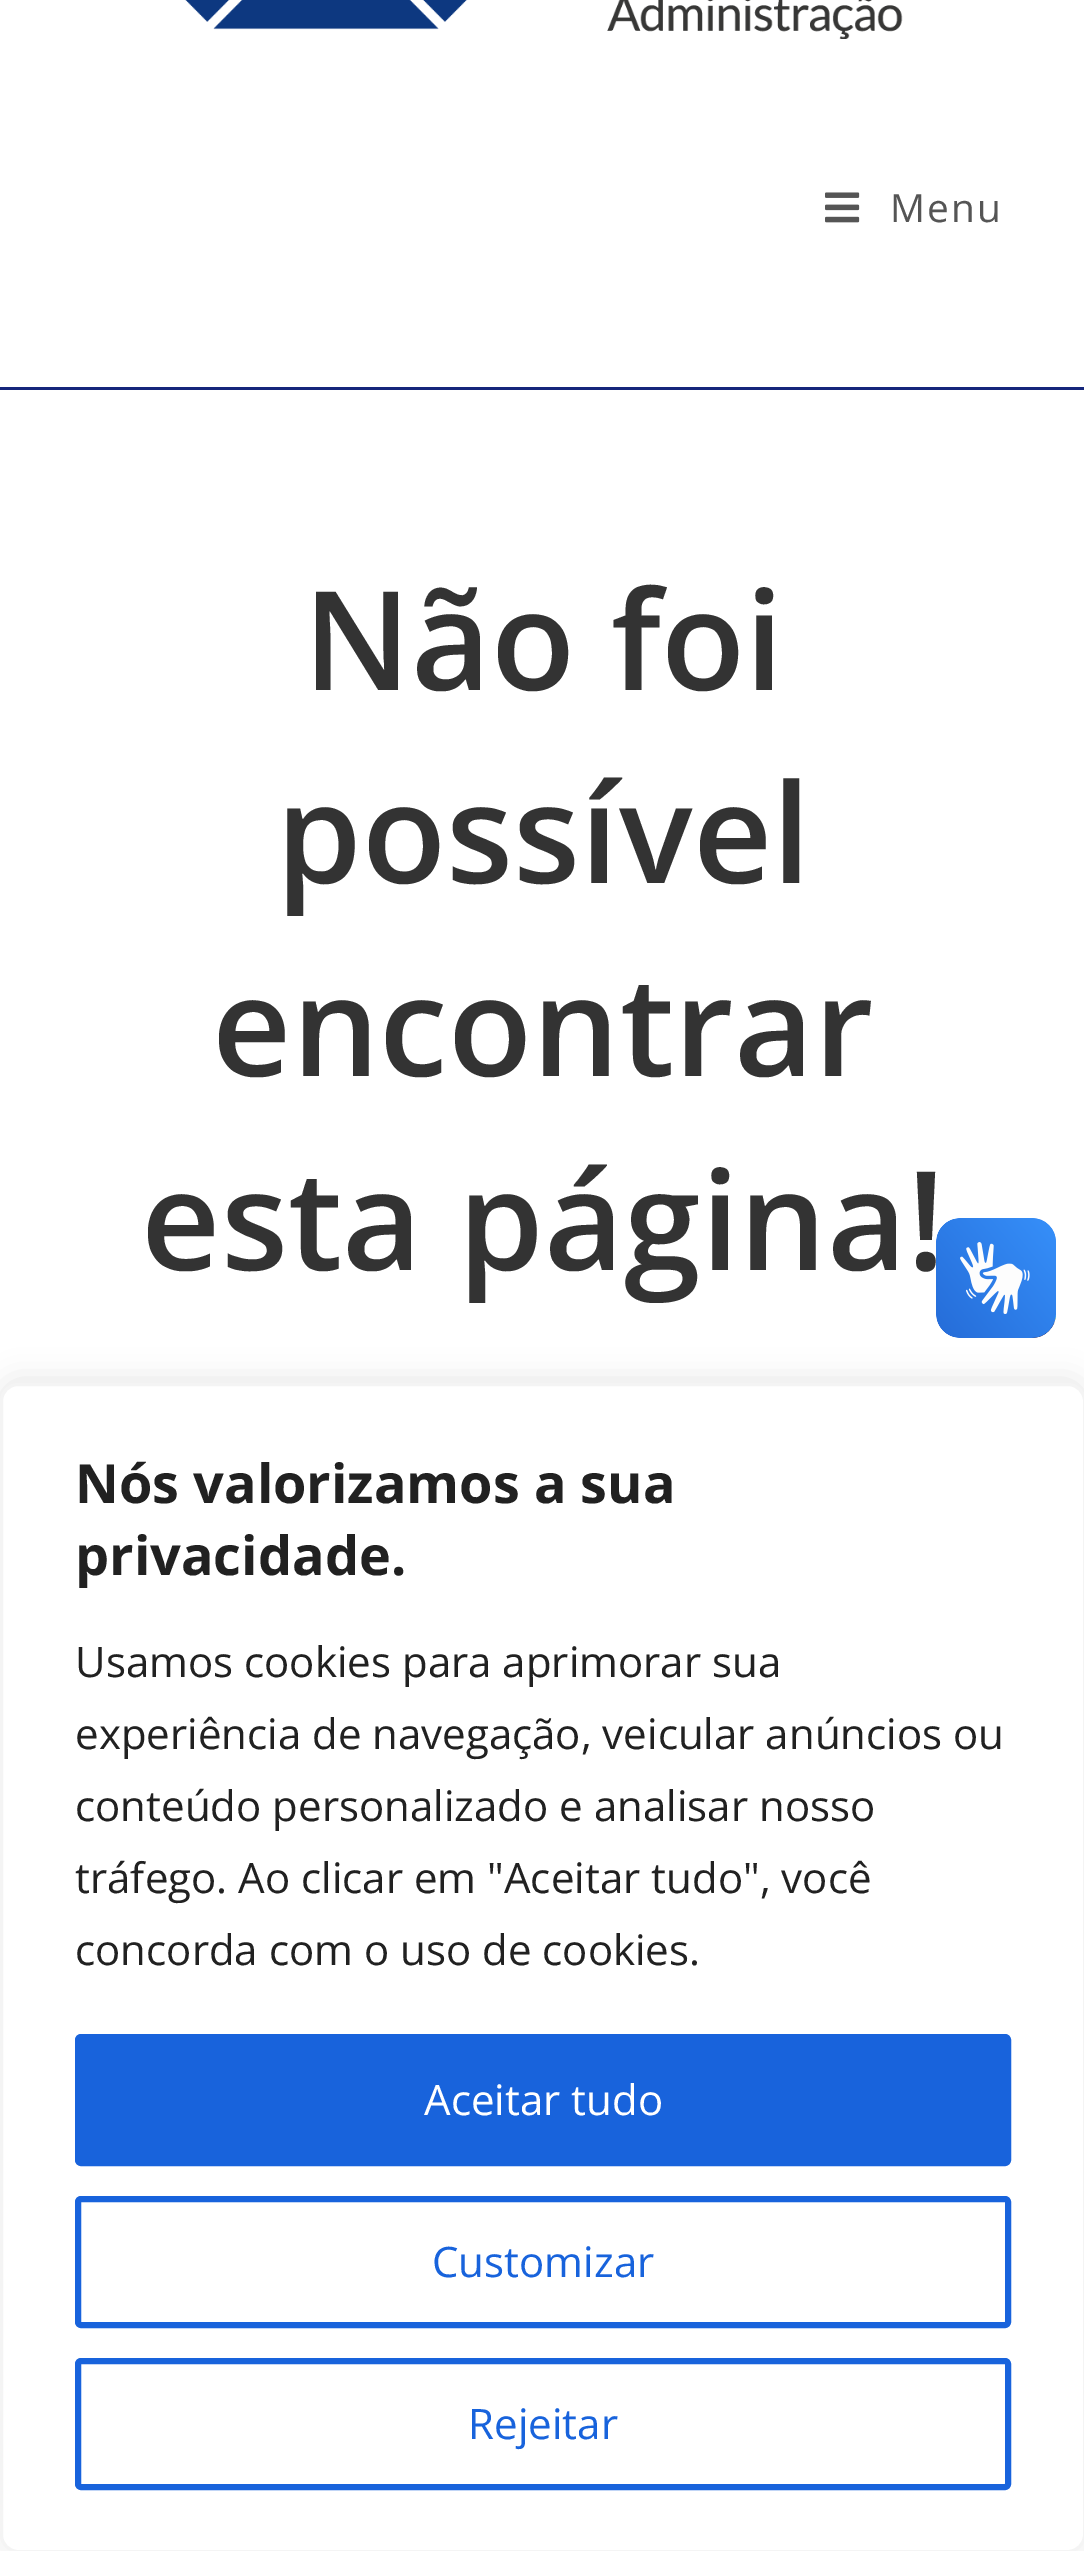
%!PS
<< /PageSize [1084 2551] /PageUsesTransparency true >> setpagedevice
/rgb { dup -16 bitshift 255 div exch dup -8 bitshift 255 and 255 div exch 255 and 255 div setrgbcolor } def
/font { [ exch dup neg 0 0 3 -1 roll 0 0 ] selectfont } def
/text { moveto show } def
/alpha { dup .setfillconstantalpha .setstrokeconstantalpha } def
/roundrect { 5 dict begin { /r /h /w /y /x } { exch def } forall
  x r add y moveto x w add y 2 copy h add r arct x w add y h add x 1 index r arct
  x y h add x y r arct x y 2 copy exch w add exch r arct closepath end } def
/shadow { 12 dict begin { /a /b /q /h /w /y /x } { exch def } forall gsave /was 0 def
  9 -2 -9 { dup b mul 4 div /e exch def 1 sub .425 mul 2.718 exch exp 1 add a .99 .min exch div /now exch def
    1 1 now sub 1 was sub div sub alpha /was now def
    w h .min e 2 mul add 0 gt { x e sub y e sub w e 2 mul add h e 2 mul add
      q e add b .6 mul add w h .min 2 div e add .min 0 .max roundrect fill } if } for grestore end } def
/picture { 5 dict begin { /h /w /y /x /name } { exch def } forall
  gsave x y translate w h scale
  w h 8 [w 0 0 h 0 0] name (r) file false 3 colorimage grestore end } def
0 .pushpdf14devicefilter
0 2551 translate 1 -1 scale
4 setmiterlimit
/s1 { /OpenSans-SemiBold 138 font 16#333333 rgb } def
/s2 { /OpenSans-Bold 54 font 16#212121 rgb } def
/s3 { /OpenSans-Regular 42 font 16#212121 rgb } def
/s4 { /OpenSans-Regular 42 font 16#FFFFFF rgb } def
/s5 { /OpenSans-Regular 42 font 16#1863DC rgb } def
16#FFFFFF rgb
0 0 1084 2551 rectfill
16#15267B rgb
0 387 1084 3 rectfill
(pic1.raw) 185 0 718 39 picture
(pic2.raw) 825 192 35 31 picture
/OpenSans-Regular 39 font
16#555555 rgb
890 222 moveto 2 0 (Menu) ashow
s1
(Não foi) 303 690 text
(possível) 276 883 text
(encontrar) 212 1076 text
(esta página!) 141 1270 text
16#ACABAB rgb
0 1380 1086 1170 18 15 0.3 shadow
(pic3.raw) 936 1218 120 120 picture
(pic4.raw) 936 1218 120 120 picture
16#FFFFFF rgb
1.5 1384.5 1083 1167 16.5 roundrect gsave fill grestore
16#F4F4F4 rgb
3 setlinewidth
stroke
s2
(Nós valorizamos a sua) 75 1503 text
(privacidade.) 75 1575 text
s3
(Usamos cookies para aprimorar sua) 75 1677 text
(experiência de navegação, veicular anúncios ou) 75 1749 text
(conteúdo personalizado e analisar nosso) 75 1821 text
(tráfego. Ao clicar em "Aceitar tudo", você) 75 1893 text
(concorda com o uso de cookies.) 75 1965 text
16#1863DC rgb
78 2037 930 126 3 roundrect gsave fill grestore
6 setlinewidth
stroke
s4
(Aceitar tudo) 424 2115 text
16#1863DC rgb
78 2199 930 126 3 roundrect stroke
(Customizar) 432 2277 text
78 2361 930 126 3 roundrect stroke
(Rejeitar) 468 2439 text
.poppdf14devicefilter showpage
